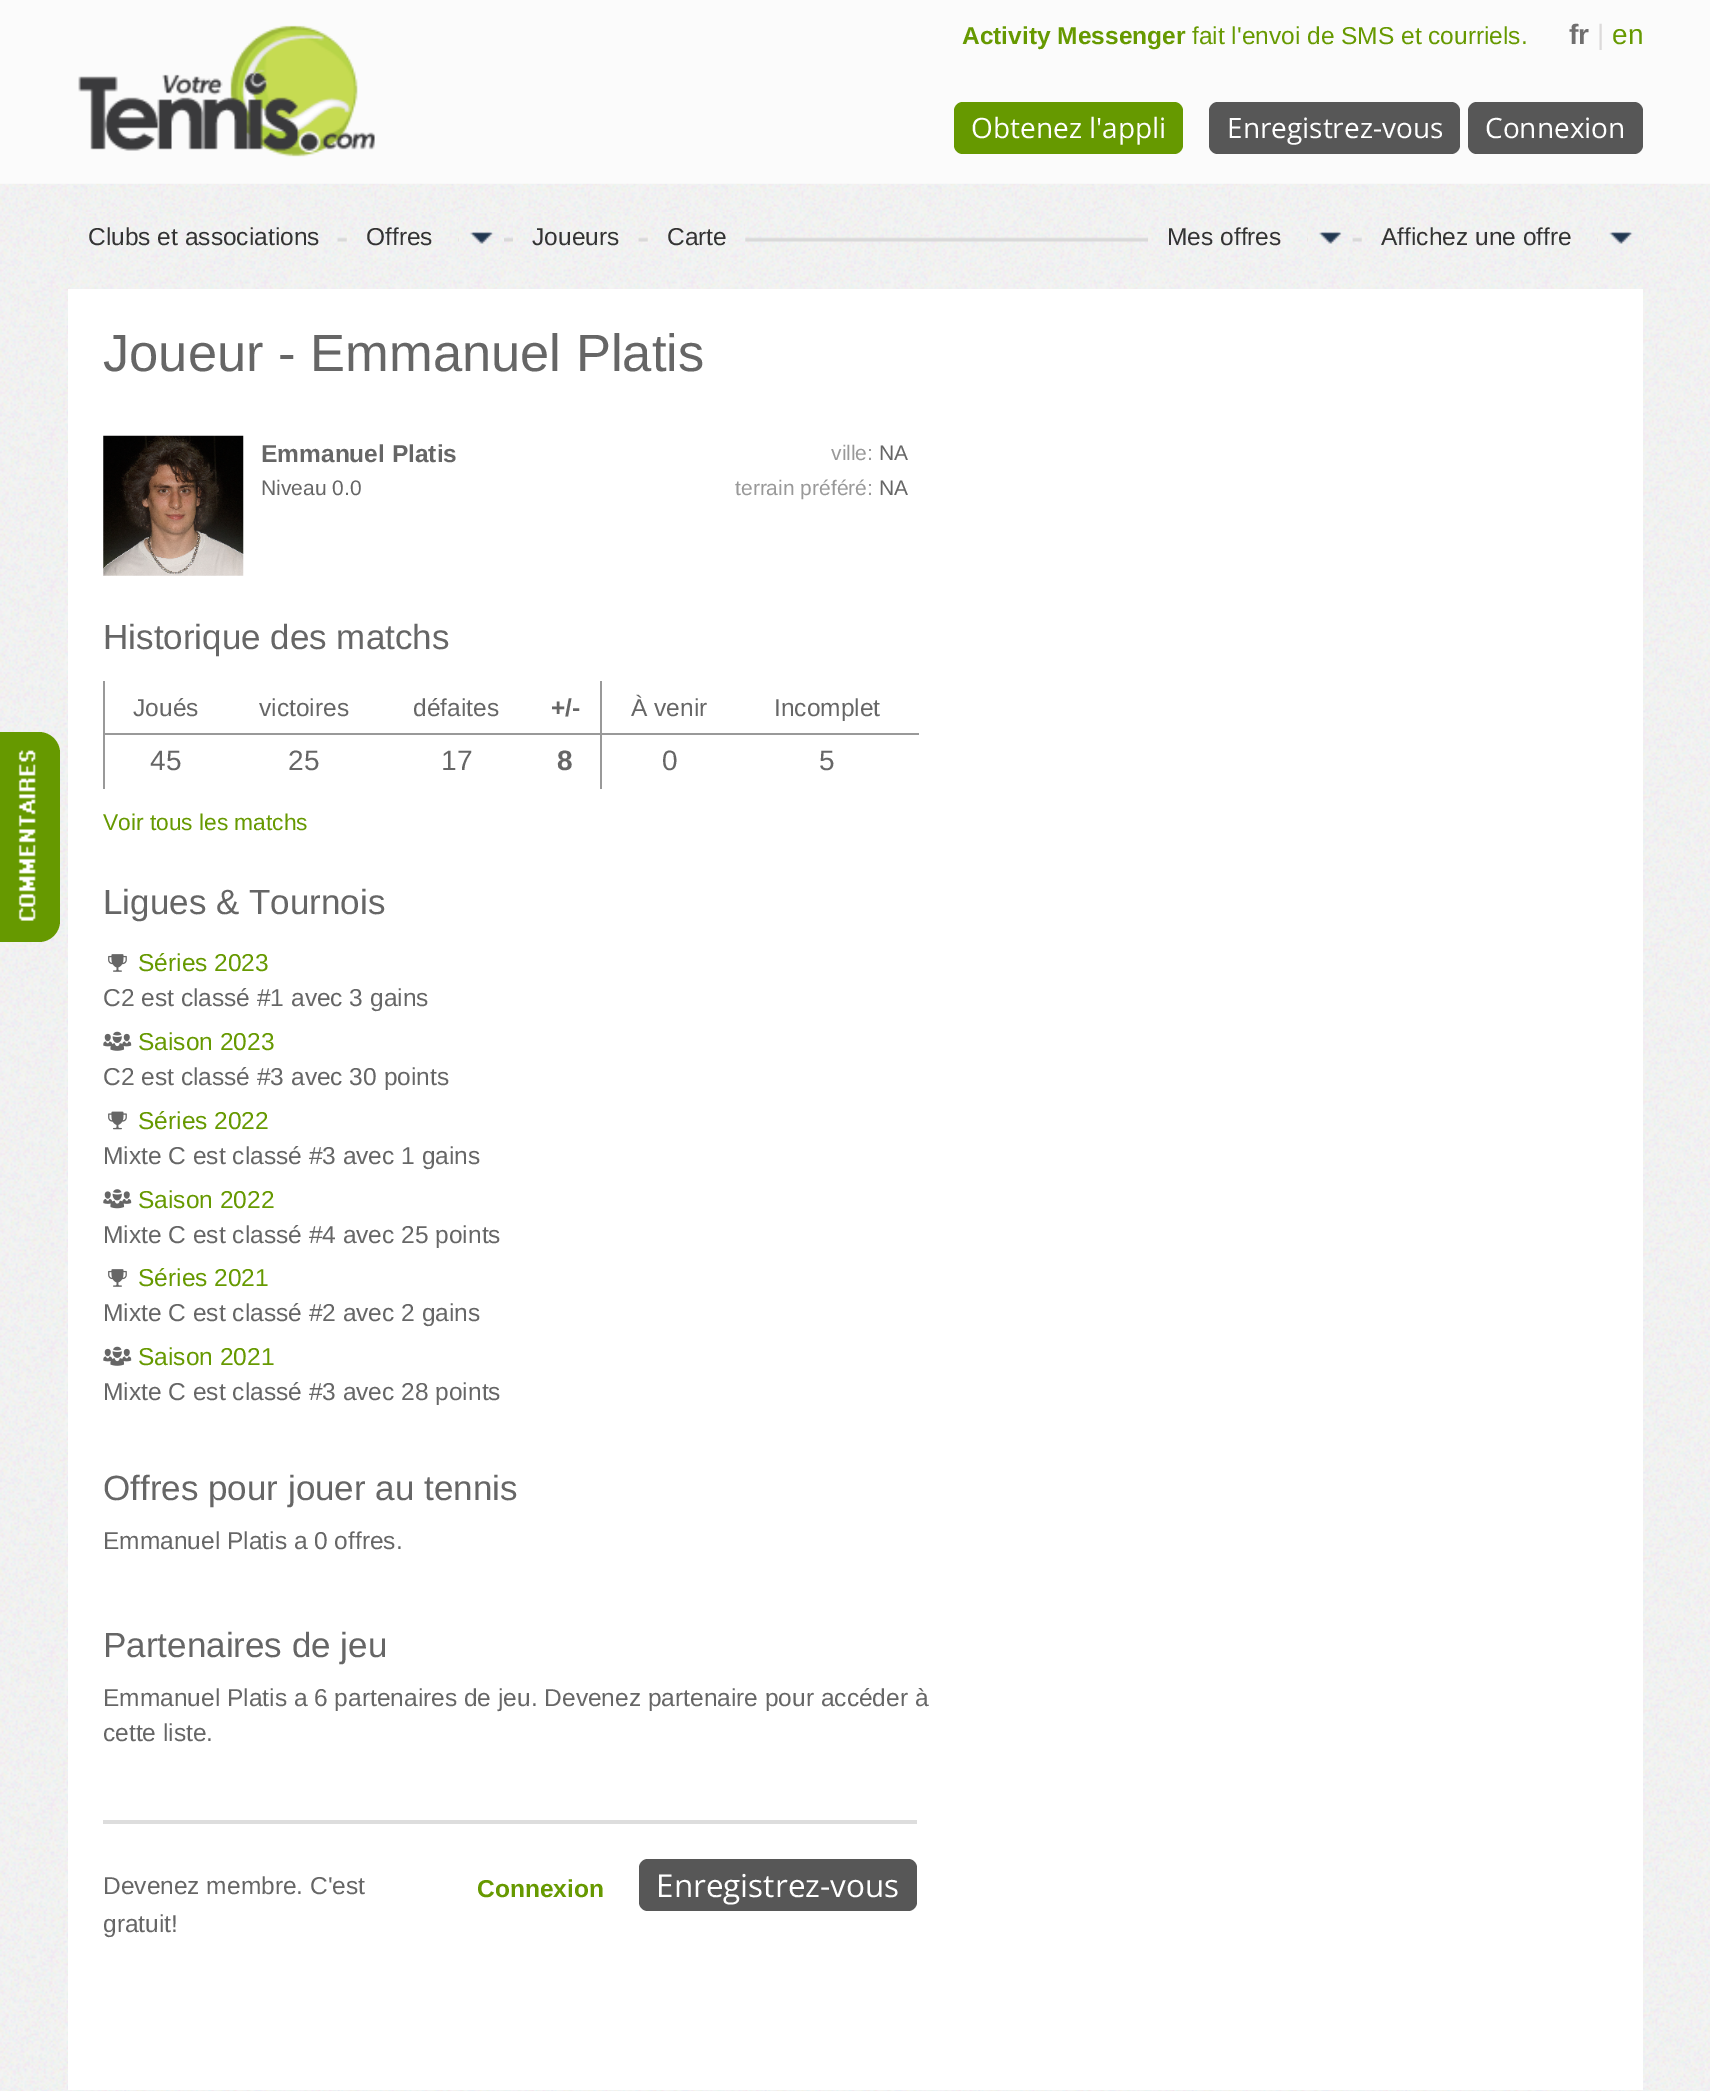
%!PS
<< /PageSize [1710 2091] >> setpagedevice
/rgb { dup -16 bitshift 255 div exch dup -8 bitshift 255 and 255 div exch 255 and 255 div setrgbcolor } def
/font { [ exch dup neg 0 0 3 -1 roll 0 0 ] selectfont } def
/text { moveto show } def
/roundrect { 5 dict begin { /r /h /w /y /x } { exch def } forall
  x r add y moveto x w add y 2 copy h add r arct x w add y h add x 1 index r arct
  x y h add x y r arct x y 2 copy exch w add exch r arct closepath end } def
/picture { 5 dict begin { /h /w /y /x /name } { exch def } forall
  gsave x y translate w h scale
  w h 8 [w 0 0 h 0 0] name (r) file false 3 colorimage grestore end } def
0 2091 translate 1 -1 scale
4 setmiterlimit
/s1 { /LiberationSans-Bold 24.5 font 16#669900 rgb } def
/s2 { /LiberationSans-Regular 24.5 font 16#669900 rgb } def
/s3 { /LiberationSans-Bold 28 font 16#6F6E6E rgb } def
/s4 { /LiberationSans-Regular 28 font 16#DCDADA rgb } def
/s5 { /LiberationSans-Regular 28 font 16#669900 rgb } def
/s6 { /OpenSans-Regular 28 font 16#FFFFFF rgb } def
/s7 { /LiberationSans-Regular 24.5 font 16#333333 rgb } def
/s8 { /LiberationSans-Regular 52.5 font 16#666666 rgb } def
/s9 { /LiberationSans-Bold 24.5 font 16#666666 rgb } def
/s10 { /LiberationSans-Regular 21 font 16#666666 rgb } def
/s11 { /LiberationSans-Regular 21 font 16#999999 rgb } def
/s12 { /LiberationSans-Regular 35 font 16#666666 rgb } def
/s13 { /LiberationSans-Regular 24.5 font 16#666666 rgb } def
/s14 { /LiberationSans-Regular 28 font 16#666666 rgb } def
/s15 { /LiberationSans-Bold 28 font 16#666666 rgb } def
/s16 { /LiberationSans-Regular 22.75 font 16#669900 rgb } def
/s17 { /OpenSans-Regular 31.5 font 16#FFFFFF rgb } def
16#FFFFFF rgb
0 0 1710 2091 rectfill
(pic1.raw) 0 2089 1710 2 picture
16#FBFBFB rgb
0 0 1710 184 rectfill
(pic2.raw) 78 25 297 132 picture
s1
(Activity Messenger) 962 44 text
s2
(fait l'envoi de SMS et courriels.) 1192 44 text
s3
(fr) 1569 44 text
s4
(|) 1597 44 text
s5
(en) 1612 44 text
954 102 229 52 9 roundrect fill
s6
(Obtenez l'appli) 971 138 text
16#575757 rgb
1209 102 251 52 9 roundrect fill
s6
(Enregistrez-vous) 1227 138 text
16#575757 rgb
1468 102 175 52 9 roundrect fill
s6
(Connexion) 1485 138 text
(pic4.raw) 0 183 1710 1907 picture
16#669900 rgb
0 732 moveto 39 732 lineto 50.5 732 60 741.5 60 753 curveto 60 921 lineto 60 932.5 50.5 942 39 942 curveto 0 942 lineto closepath fill
(pic3.raw) 18 750 18 171 picture
(pic5.raw) 68 237 1576 5 picture
(pic6.raw) 68 212 270 49 picture
s7
(Clubs et associations) 88 245 text
(pic7.raw) 346 212 113 49 picture
(pic8.raw) 458 212 46 49 picture
(pic9.raw) 470 232 24 12 picture
(Offres) 366 245 text
(pic10.raw) 513 212 126 49 picture
(Joueurs) 532 245 text
(pic11.raw) 647 212 99 49 picture
(Carte) 667 245 text
(pic12.raw) 1148 212 159 49 picture
(pic13.raw) 1307 212 46 49 picture
(pic14.raw) 1319 232 23 12 picture
(Mes offres) 1167 245 text
(pic15.raw) 1361 212 237 49 picture
(pic16.raw) 1598 212 45 49 picture
(pic17.raw) 1609 232 24 12 picture
(Affichez une offre) 1381 245 text
16#FFFFFF rgb
68 289 1575 1801 rectfill
s8
(Joueur - Emmanuel Platis) 103 371 text
(pic18.raw) 103 435 141 141 picture
s9
(Emmanuel Platis) 261 462 text
s10
(Niveau 0.0) 261 495 text
s11
(ville:) 831 460 text
s10
(NA) 879 460 text
s11
(terrain préféré:) 735 495 text
s10
(NA) 879 495 text
s12
(Historique des matchs) 103 649 text
s13
(Joués) 133 716 text
(victoires) 259 716 text
(défaites) 413 716 text
s9
(+/-) 551 716 text
s13
(À venir) 631 716 text
(Incomplet) 774 716 text
16#999999 rgb
103 733 816 2 rectfill
103 681 2 108 rectfill
s14
(45) 150 770 text
(25) 288 770 text
(17) 441 770 text
s15
(8) 557 770 text
16#999999 rgb
600 681 2 108 rectfill
s14
(0) 662 770 text
(5) 819 770 text
s16
(Voir tous les matchs) 103 830 text
s12
(Ligues & Tournois) 103 914 text
(pic19.raw) 108 954 19 18 picture
s2
(Séries 2023) 138 971 text
s13
(C2 est classé #1 avec 3 gains) 103 1006 text
(pic20.raw) 103 1031 29 20 picture
s2
(Saison 2023) 138 1050 text
s13
(C2 est classé #3 avec 30 points) 103 1085 text
(pic21.raw) 108 1111 19 19 picture
s2
(Séries 2022) 138 1129 text
s13
(Mixte C est classé #3 avec 1 gains) 103 1164 text
(pic22.raw) 103 1189 29 20 picture
s2
(Saison 2022) 138 1208 text
s13
(Mixte C est classé #4 avec 25 points) 103 1243 text
(pic19.raw) 108 1269 19 18 picture
s2
(Séries 2021) 138 1286 text
s13
(Mixte C est classé #2 avec 2 gains) 103 1321 text
(pic20.raw) 103 1346 29 20 picture
s2
(Saison 2021) 138 1365 text
s13
(Mixte C est classé #3 avec 28 points) 103 1400 text
s12
(Offres pour jouer au tennis) 103 1500 text
s13
(Emmanuel Platis a 0 offres.) 103 1549 text
s12
(Partenaires de jeu) 103 1657 text
s13
(Emmanuel Platis a 6 partenaires de jeu. Devenez partenaire pour accéder à) 103 1706 text
(cette liste.) 103 1741 text
16#DDDDDD rgb
103 1820 814 4 rectfill
s13
(Devenez membre. C'est) 103 1894 text
(gratuit!) 103 1932 text
s1
(Connexion) 477 1897 text
16#575757 rgb
639 1859 278 52 9 roundrect fill
s17
(Enregistrez-vous) 656 1897 text
showpage
